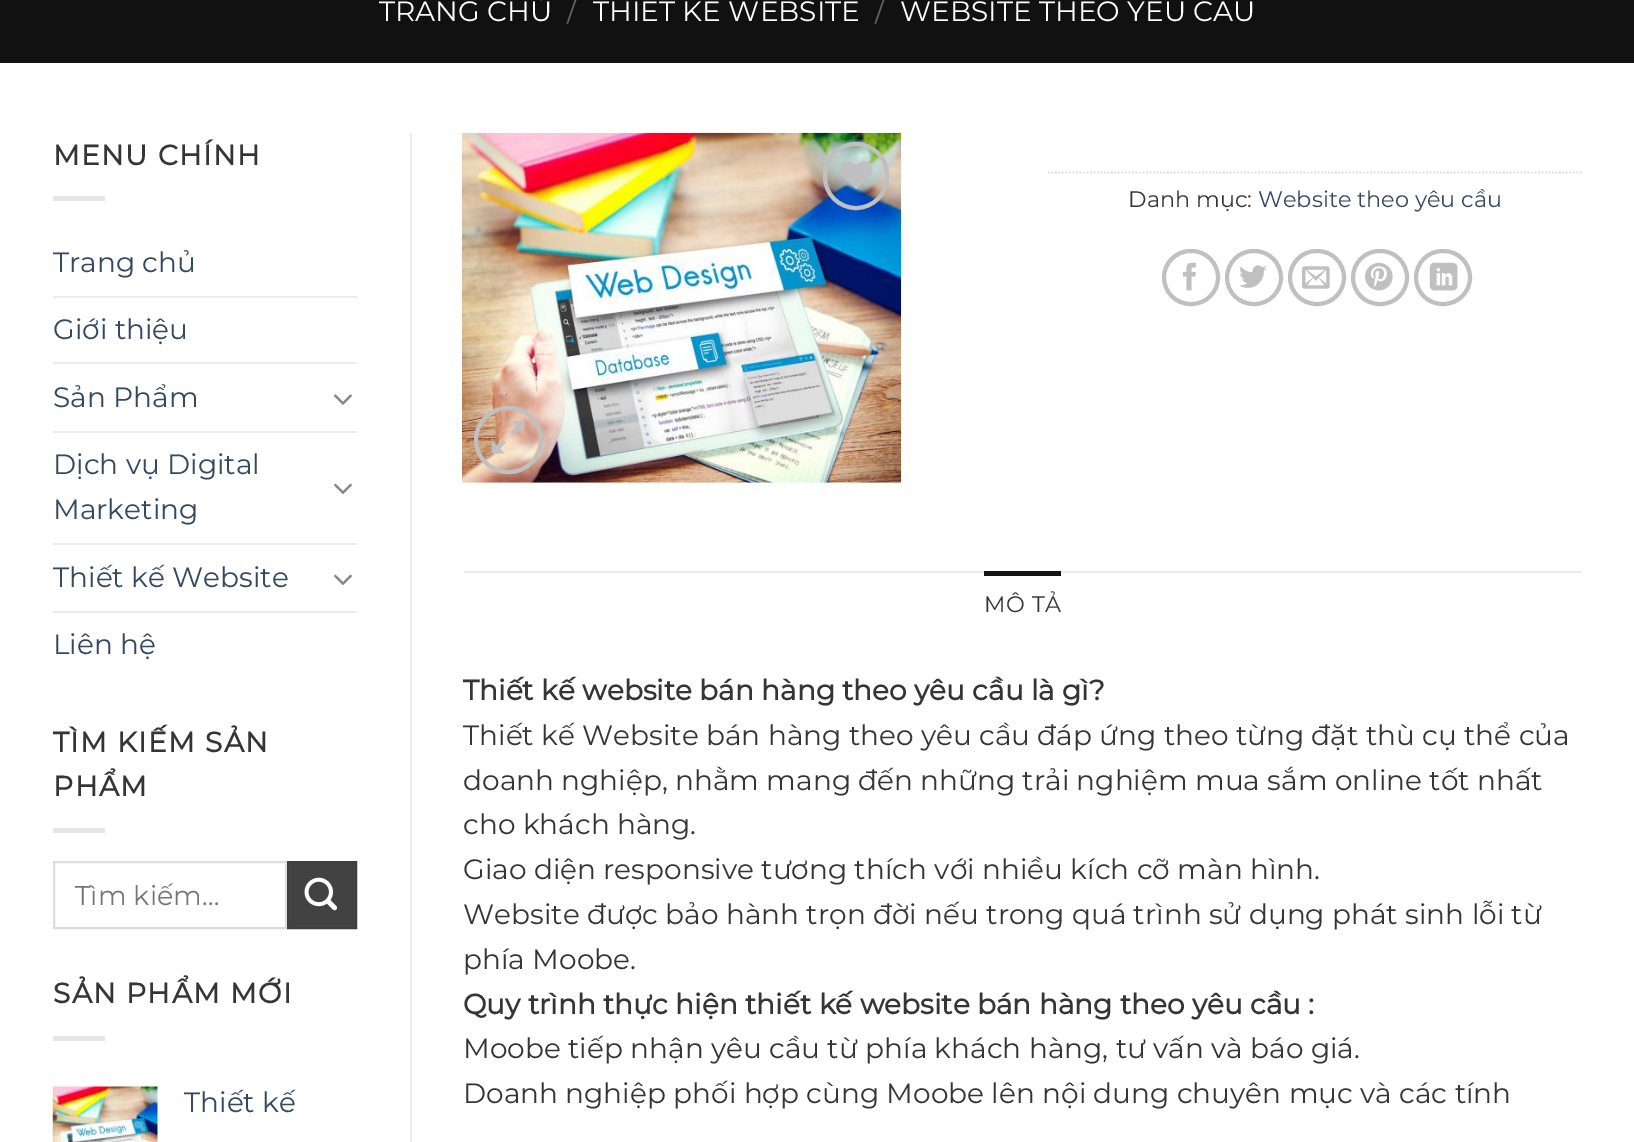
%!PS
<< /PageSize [1634 1142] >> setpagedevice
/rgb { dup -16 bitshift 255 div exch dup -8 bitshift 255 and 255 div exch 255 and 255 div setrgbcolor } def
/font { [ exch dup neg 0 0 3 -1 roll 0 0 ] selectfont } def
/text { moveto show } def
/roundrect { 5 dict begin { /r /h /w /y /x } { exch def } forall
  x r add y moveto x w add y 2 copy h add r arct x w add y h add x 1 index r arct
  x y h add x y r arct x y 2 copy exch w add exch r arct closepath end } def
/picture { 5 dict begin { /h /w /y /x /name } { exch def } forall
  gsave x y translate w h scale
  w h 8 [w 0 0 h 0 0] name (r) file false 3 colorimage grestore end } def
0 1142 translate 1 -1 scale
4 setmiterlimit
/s1 { /Montserrat-Thin 28 font 16#FFFFFF rgb } def
/s2 { /Montserrat-Thin 28 font 16#646464 rgb } def
/s3 { /Montserrat-Thin 28 font 16#334862 rgb } def
/s4 { /Montserrat-Thin 27 font 16#757575 rgb } def
/s5 { /Montserrat-Thin 22.4 font 16#353535 rgb } def
/s6 { /Montserrat-Thin 22.4 font 16#334862 rgb } def
/s7 { /Montserrat-Bold 28 font 16#353535 rgb } def
/s8 { /Montserrat-Thin 28 font 16#353535 rgb } def
16#FFFFFF rgb
0 0 1634 1142 rectfill
16#111111 rgb
0 0 1634 63 rectfill
s1
(TRANG CHỦ) 379 21 text
s2
(/) 567 21 text
s1
(THIẾT KẾ WEBSITE) 593 21 text
s2
(/) 875 21 text
s1
(WEBSITE THEO YÊU CẦU) 900 21 text
/Montserrat-Bold 28 font
16#353535 rgb
53 165 moveto 1.4 0 (MENU CHÍNH) ashow
16#E6E6E6 rgb
53 196 52 5 rectfill
s3
(Trang chủ) 53 272 text
16#ECECEC rgb
53 296 304 2 rectfill
s3
(Giới thiệu) 53 339 text
16#ECECEC rgb
53 362 304 2 rectfill
s3
(Sản Phẩm) 53 407 text
(pic1.raw) 334 394 18 11 picture
16#ECECEC rgb
53 431 304 2 rectfill
s3
(Dịch vụ Digital) 53 474 text
(Marketing) 53 519 text
(pic2.raw) 334 483 18 11 picture
16#ECECEC rgb
53 543 304 2 rectfill
s3
(Thiết kế Website) 53 587 text
(pic2.raw) 334 574 18 11 picture
16#ECECEC rgb
53 611 304 2 rectfill
s3
(Liên hệ) 53 654 text
/Montserrat-Bold 28 font
16#353535 rgb
53 752 moveto 1.4 0 (TÌM KIẾM SẢN) ashow
53 796 moveto 1.4 0 (PHẨM) ashow
16#E6E6E6 rgb
53 828 52 5 rectfill
16#DDDDDD rgb
2 setlinewidth
54 862 232 66 rectstroke
s4
(Tìm kiếm…) 75 905 text
16#424242 rgb
288 862 moveto 356 862 lineto 356 928 lineto 288 928 lineto closepath gsave fill grestore
16#3F3F3F rgb
stroke
(pic3.raw) 304 877 34 34 picture
/Montserrat-Bold 28 font
16#353535 rgb
53 1003 moveto 1.4 0 (SẢN PHẨM MỚI) ashow
16#E6E6E6 rgb
53 1036 52 5 rectfill
(pic4.raw) 52 1086 106 56 picture
s3
(Thiết kế) 184 1112 text
16#ECECEC rgb
410 133 2 1009 rectfill
(pic5.raw) 462 132 440 351 picture
16#C0C0C0 rgb
4 setlinewidth
825 144 62 64 31 roundrect stroke
(pic6.raw) 840 161 33 28 picture
476 408 65 64 32 roundrect stroke
(pic7.raw) 491 421 34 33 picture
16#DDDDDD rgb
1.8 setlinewidth
[1.75 1.75] 0 setdash
1048 172.5 moveto 1582 172.5 lineto stroke
s5
(Danh mục:) 1128 207 text
s6
(Website theo yêu cầu) 1258 207 text
16#C0C0C0 rgb
4 setlinewidth
[] 0 setdash
1164 251 54 53 26.5 roundrect stroke
(pic8.raw) 1182 262 14 29 picture
1227 251 54 53 26.5 roundrect stroke
(pic9.raw) 1239 265 28 23 picture
1290 251 54 53 26.5 roundrect stroke
(pic10.raw) 1302 266 28 23 picture
1353 251 54 53 26.5 roundrect stroke
(pic11.raw) 1365 262 28 29 picture
1416 251 54 53 26.5 roundrect stroke
(pic12.raw) 1429 262 29 29 picture
16#ECECEC rgb
464 571 1118 2 rectfill
16#141414 rgb
984 571 77 5 rectfill
16#353535 rgb
984 612 moveto 0.5 0 (MÔ TẢ) ashow
s7
(Thiết kế website bán hàng theo yêu cầu là gì?) 463 700 text
s8
(Thiết kế Website bán hàng theo yêu cầu đáp ứng theo từng đặt thù cụ thể của) 463 745 text
(doanh nghiệp, nhằm mang đến những trải nghiệm mua sắm online tốt nhất) 463 790 text
(cho khách hàng.) 463 834 text
(Giao diện responsive tương thích với nhiều kích cỡ màn hình.) 463 879 text
(Website được bảo hành trọn đời nếu trong quá trình sử dụng phát sinh lỗi từ) 463 924 text
(phía Moobe.) 463 969 text
s7
(Quy trình thực hiện thiết kế website bán hàng theo yêu cầu :) 463 1014 text
s8
(Moobe tiếp nhận yêu cầu từ phía khách hàng, tư vấn và báo giá.) 463 1058 text
(Doanh nghiệp phối hợp cùng Moobe lên nội dung chuyên mục và các tính) 463 1103 text
showpage
